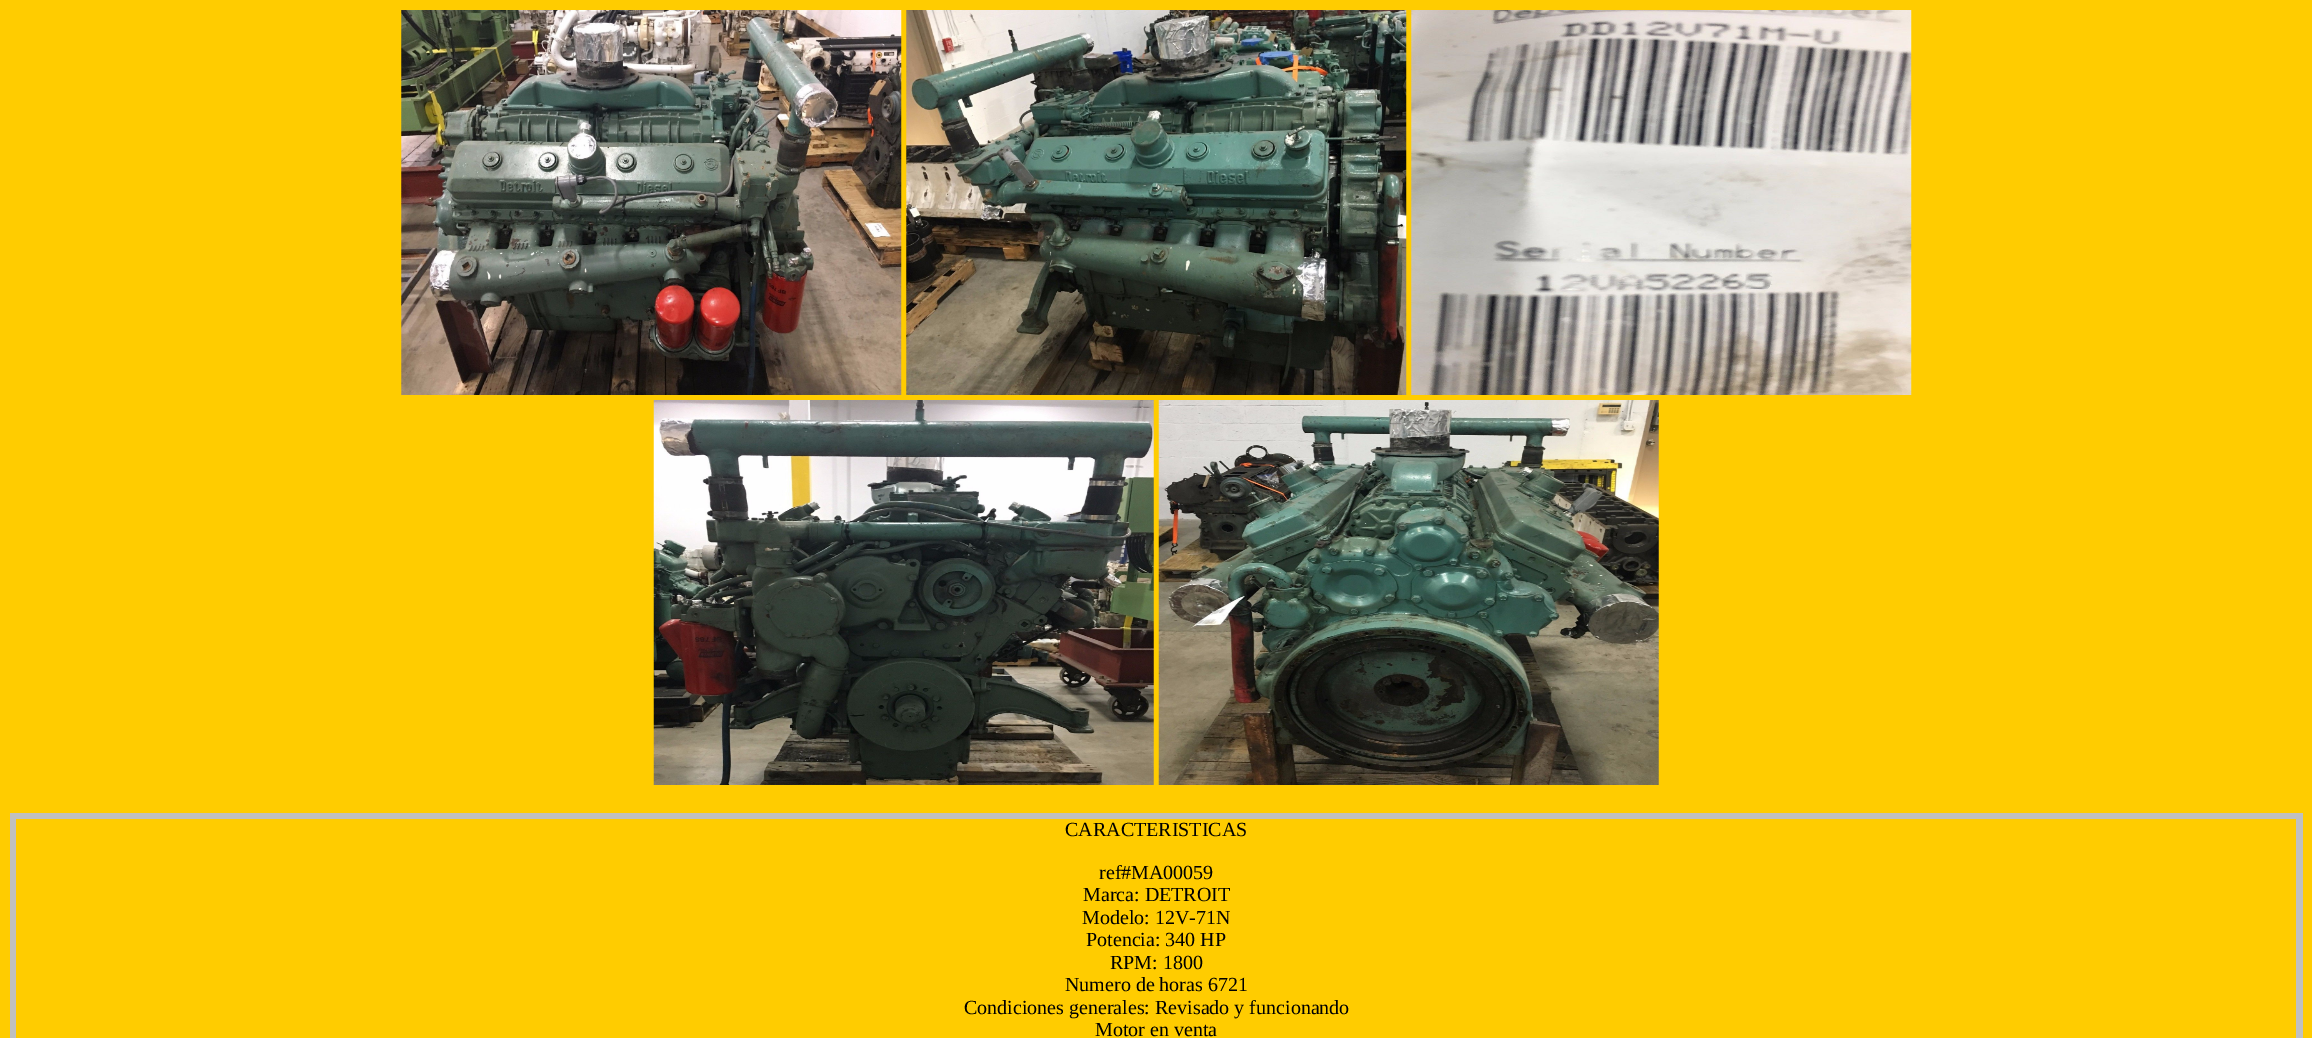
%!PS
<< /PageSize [2312 1038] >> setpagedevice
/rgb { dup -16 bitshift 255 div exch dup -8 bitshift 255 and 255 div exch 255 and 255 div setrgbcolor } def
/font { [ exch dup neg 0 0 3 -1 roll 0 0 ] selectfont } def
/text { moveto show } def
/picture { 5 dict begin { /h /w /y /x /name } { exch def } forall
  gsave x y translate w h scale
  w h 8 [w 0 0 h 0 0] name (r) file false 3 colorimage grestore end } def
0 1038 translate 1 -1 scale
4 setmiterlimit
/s1 { /LiberationSerif-Regular 20 font 16#000000 rgb } def
16#FFCC00 rgb
0 0 2312 1038 rectfill
(pic1.raw) 401 10 501 385 picture
(pic2.raw) 906 10 501 385 picture
(pic3.raw) 1411 10 501 385 picture
(pic4.raw) 653 400 501 385 picture
(pic5.raw) 1158 400 501 385 picture
16#C0C0C0 rgb
10 813 2293 6 rectfill
2296 813 7 225 rectfill
10 813 6 225 rectfill
s1
(CARACTERISTICAS) 1065 836 text
(ref#MA00059) 1099 879 text
(Marca: DETROIT) 1083 901 text
(Modelo: 12V-71N) 1082 924 text
(Potencia: 340 HP) 1086 946 text
(RPM: 1800) 1110 969 text
(Numero de horas 6721) 1065 991 text
(Condiciones generales: Revisado y funcionando) 964 1014 text
(Motor en venta) 1095 1036 text
showpage
